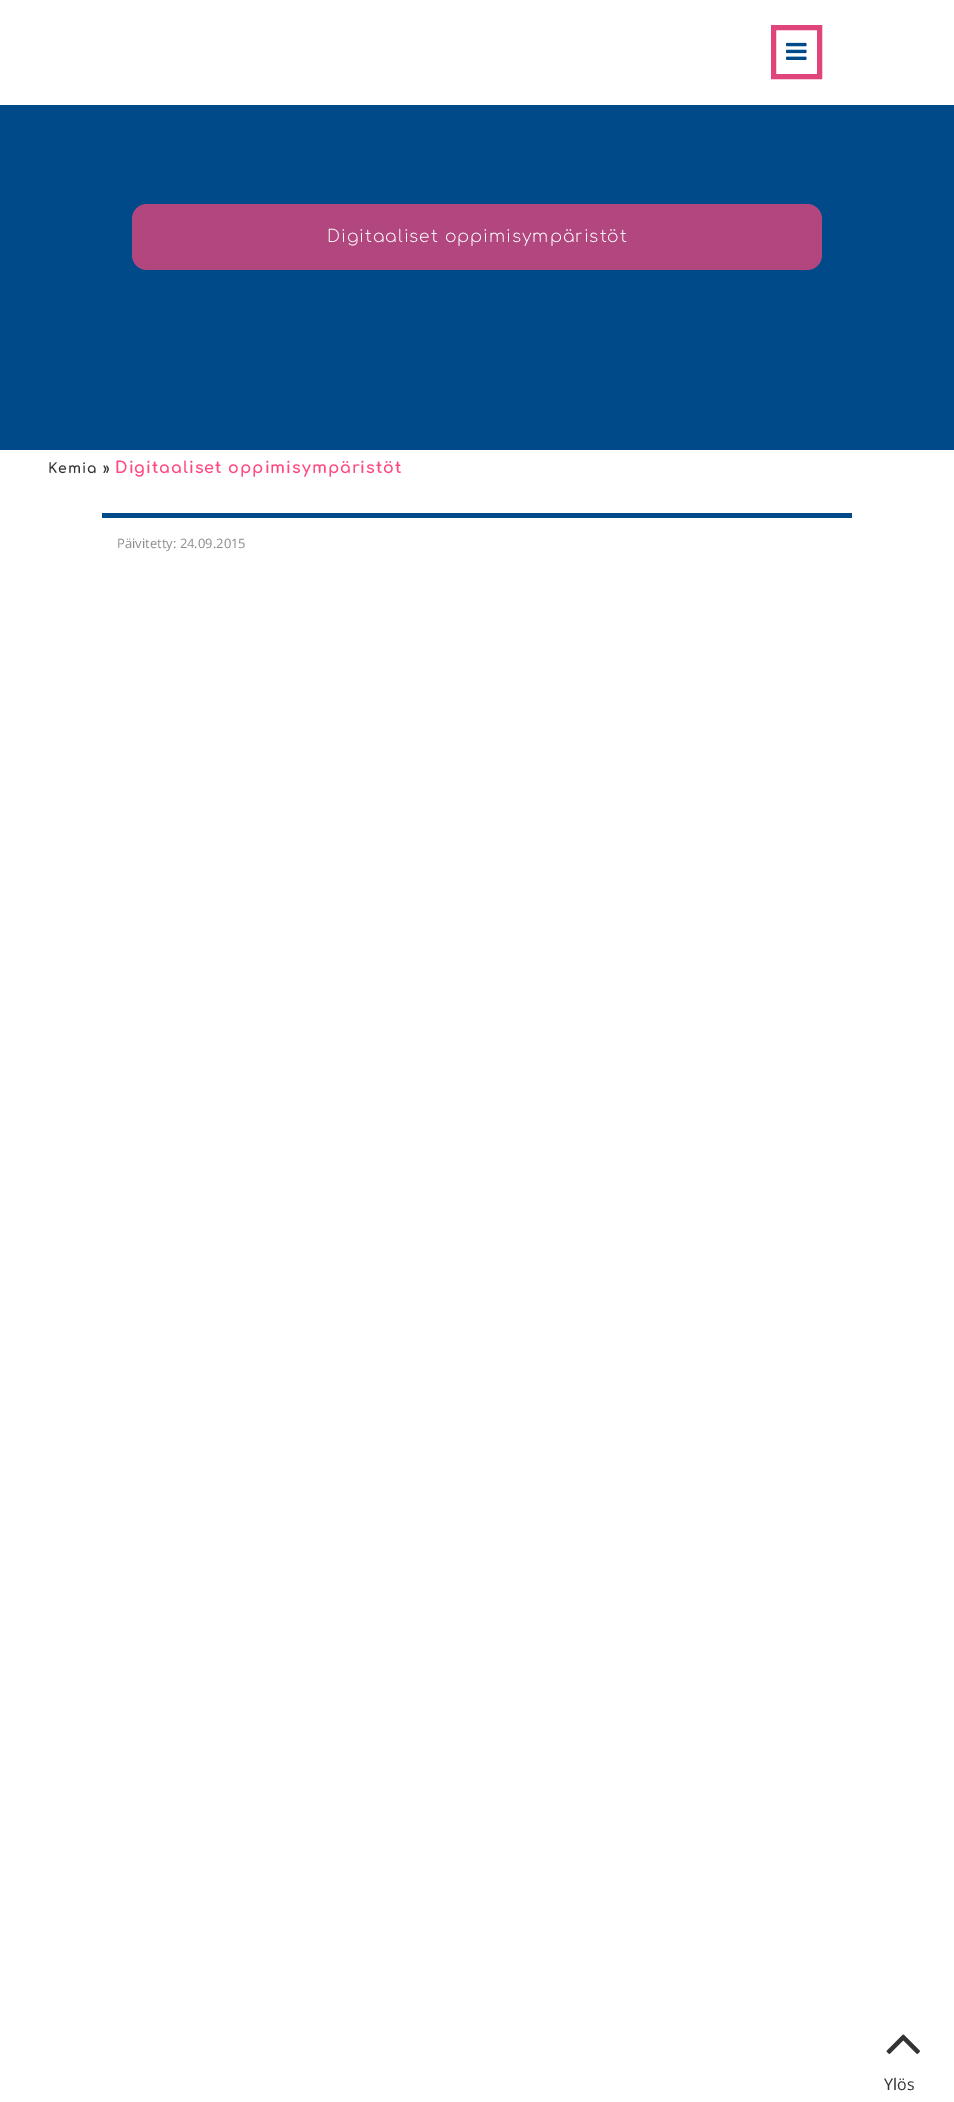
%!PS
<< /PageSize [954 2102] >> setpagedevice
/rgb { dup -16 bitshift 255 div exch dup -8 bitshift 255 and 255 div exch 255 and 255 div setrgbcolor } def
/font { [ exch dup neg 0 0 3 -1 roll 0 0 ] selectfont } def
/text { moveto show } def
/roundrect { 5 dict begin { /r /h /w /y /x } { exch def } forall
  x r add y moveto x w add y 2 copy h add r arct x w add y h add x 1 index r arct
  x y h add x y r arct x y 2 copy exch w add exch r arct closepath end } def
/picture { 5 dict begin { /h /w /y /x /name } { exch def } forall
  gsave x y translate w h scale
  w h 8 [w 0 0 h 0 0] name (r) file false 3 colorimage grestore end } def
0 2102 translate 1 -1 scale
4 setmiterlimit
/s1 { /OpenSans-Regular 13 font 16#8C8C8C rgb } def
/s2 { /OpenSans-Regular 16 font 16#333333 rgb } def
16#FFFFFF rgb
0 0 954 2102 rectfill
16#DF457B rgb
5 setlinewidth
773.5 27.5 46 49 rectstroke
(pic1.raw) 786 42 21 18 picture
16#004A8A rgb
0 105 954 345 rectfill
16#B2467E rgb
132 204 690 66 15 roundrect fill
/Comfortaa-Light 17 font
16#FFFFFF rgb
327 242 moveto 1 0 (Digitaaliset oppimisympäristöt) ashow
/Comfortaa-Bold 14 font
16#333333 rgb
48 473 moveto 1 0 (Kemia ») ashow
/Comfortaa-Bold 16 font
16#FF4780 rgb
115 473 moveto 1 0 (Digitaaliset oppimisympäristöt) ashow
16#004A8A rgb
102 513 750 5 rectfill
s1
(Päivitetty: 24.09.2015) 117 548 text
(pic2.raw) 886 2034 34 20 picture
s2
(Ylös) 884 2090 text
showpage
